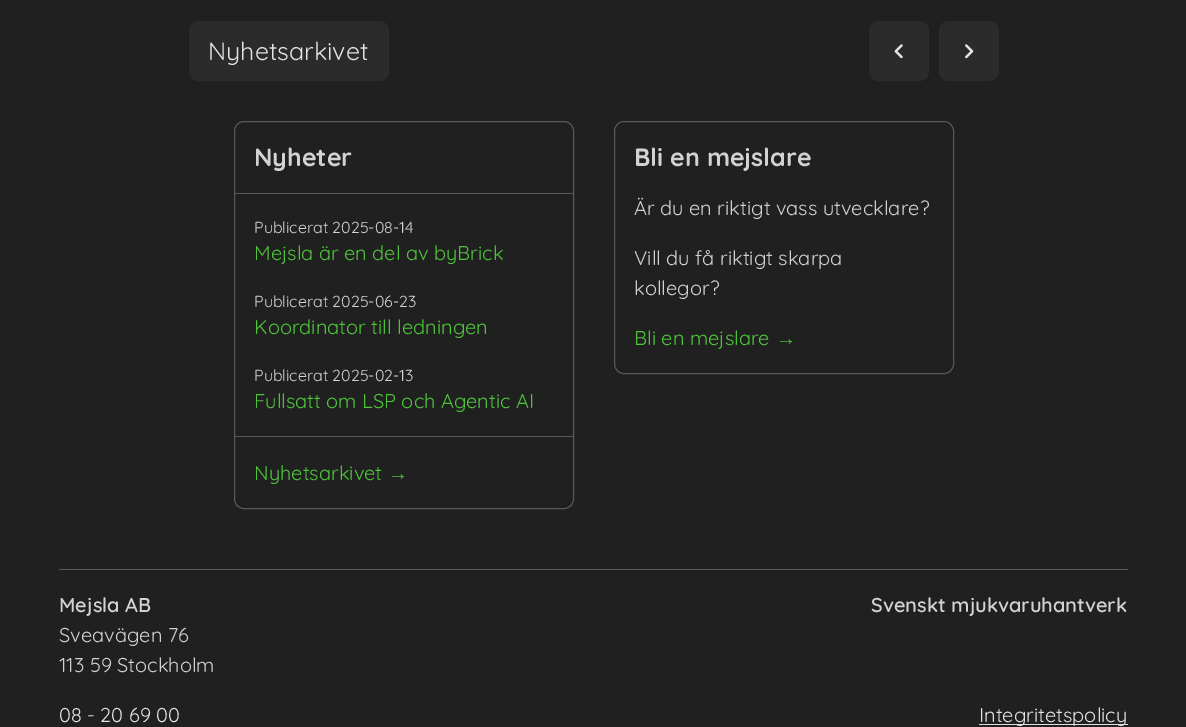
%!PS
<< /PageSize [1186 727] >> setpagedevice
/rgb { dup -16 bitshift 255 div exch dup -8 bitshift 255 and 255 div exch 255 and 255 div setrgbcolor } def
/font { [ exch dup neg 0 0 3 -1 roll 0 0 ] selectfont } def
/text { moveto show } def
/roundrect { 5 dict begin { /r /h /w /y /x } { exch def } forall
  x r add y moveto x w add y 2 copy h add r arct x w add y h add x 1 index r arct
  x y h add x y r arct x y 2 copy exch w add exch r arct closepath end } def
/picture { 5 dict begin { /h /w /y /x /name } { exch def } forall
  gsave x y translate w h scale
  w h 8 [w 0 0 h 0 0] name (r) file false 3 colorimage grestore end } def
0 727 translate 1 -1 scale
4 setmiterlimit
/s1 { /Quicksand-Regular 25 font 16#E3E3E3 rgb } def
/s2 { /Quicksand-Bold 25 font 16#D2D2D2 rgb } def
/s3 { /Quicksand-Regular 16 font 16#D2D2D2 rgb } def
/s4 { /Quicksand-Regular 20 font 16#4FC43B rgb } def
/s5 { /LiberationSans-Regular 20 font 16#4FC43B rgb } def
/s6 { /Quicksand-Regular 20 font 16#D2D2D2 rgb } def
/s7 { /Quicksand-SemiBold 20 font 16#D2D2D2 rgb } def
/s8 { /Quicksand-Regular 20 font 16#E3E3E3 rgb } def
16#202020 rgb
0 0 1186 727 rectfill
16#2B2B2B rgb
189 21 200 60 10 roundrect fill
s1
(Nyhetsarkivet) 208 60 text
16#2B2B2B rgb
869 21 60 60 10 roundrect fill
(pic1.raw) 894 44 9 15 picture
939 21 60 60 10 roundrect fill
(pic2.raw) 965 44 9 15 picture
16#585858 rgb
234.5 121.5 339 387 9.5 roundrect stroke
s2
(Nyheter) 254 166 text
16#585858 rgb
235 193 338 1 rectfill
s3
(Publicerat 2025-08-14) 254 233 text
s4
(Mejsla är en del av byBrick) 254 260 text
s3
(Publicerat 2025-06-23) 254 307 text
s4
(Koordinator till ledningen) 254 334 text
s3
(Publicerat 2025-02-13) 254 381 text
s4
(Fullsatt om LSP och Agentic AI) 254 408 text
16#585858 rgb
235 436 338 1 rectfill
s4
(Nyhetsarkivet) 254 480 text
s5
(→) 388 480 text
16#585858 rgb
614.5 121.5 339 252 9.5 roundrect stroke
s2
(Bli en mejslare) 634 166 text
s6
(Är du en riktigt vass utvecklare?) 634 215 text
(Vill du få riktigt skarpa) 634 265 text
(kollegor?) 634 295 text
s4
(Bli en mejslare) 634 345 text
s5
(→) 776 345 text
16#585858 rgb
59 569 1069 1 rectfill
s7
(Mejsla AB) 59 612 text
s6
(Sveavägen 76) 59 642 text
(113 59 Stockholm) 59 672 text
s8
(08 - 20 69 00) 59 722 text
s7
(Svenskt mjukvaruhantverk) 871 612 text
16#DEDEDE rgb
979 724 149 1 rectfill
s8
(Integritetspolicy) 979 722 text
showpage
